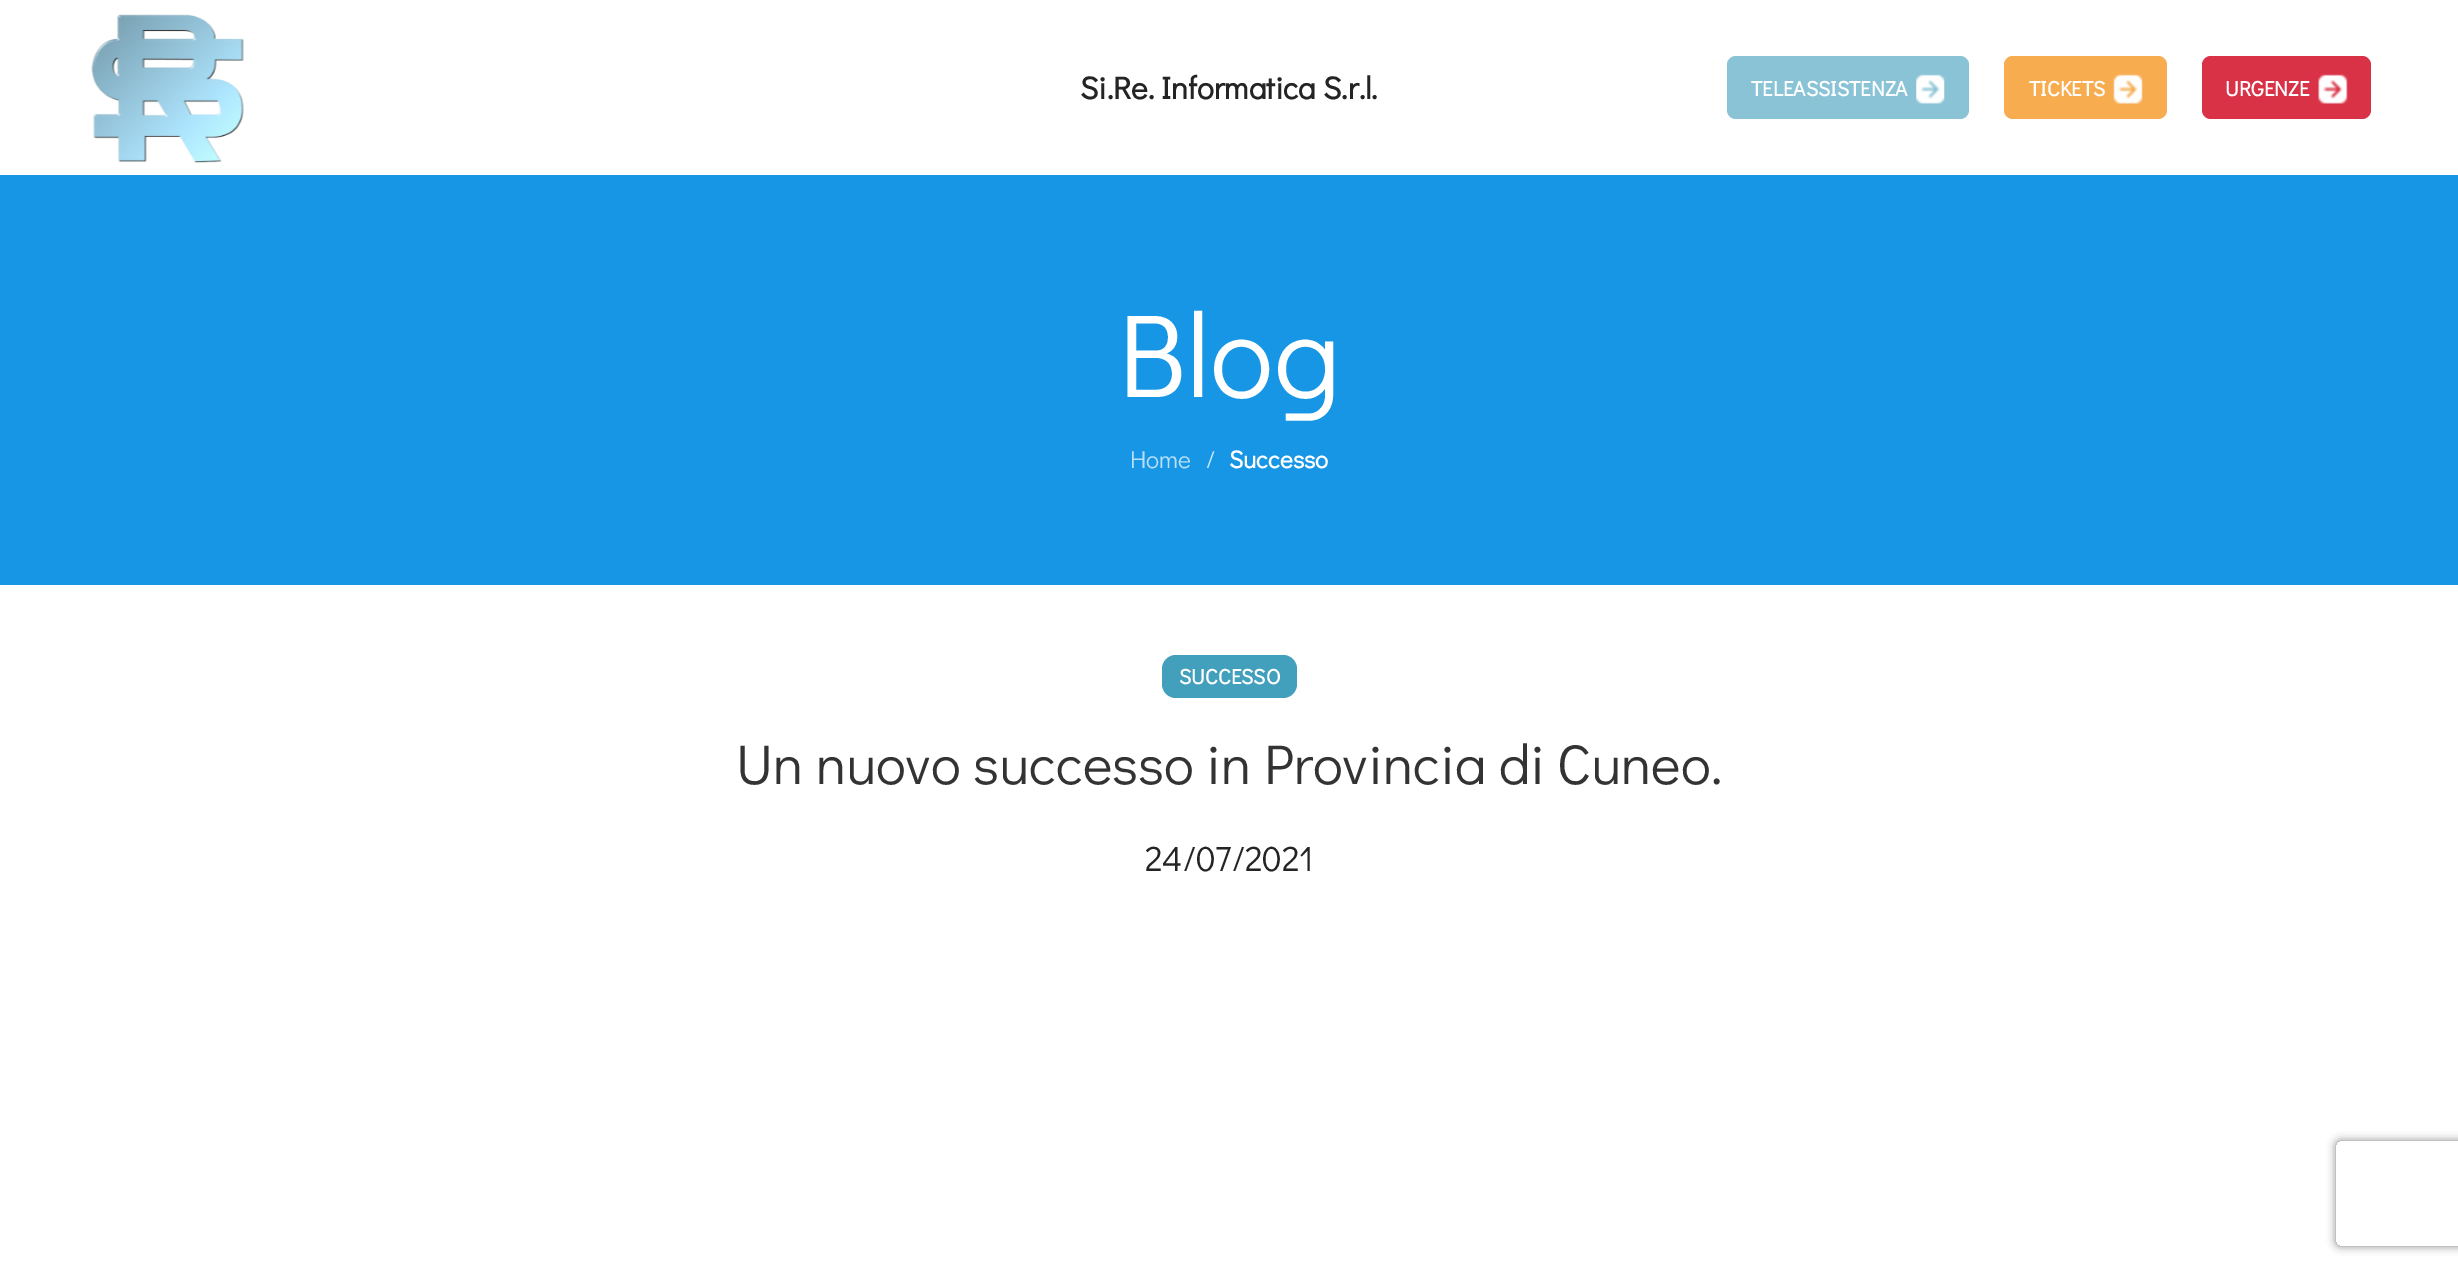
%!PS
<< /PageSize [2458 1270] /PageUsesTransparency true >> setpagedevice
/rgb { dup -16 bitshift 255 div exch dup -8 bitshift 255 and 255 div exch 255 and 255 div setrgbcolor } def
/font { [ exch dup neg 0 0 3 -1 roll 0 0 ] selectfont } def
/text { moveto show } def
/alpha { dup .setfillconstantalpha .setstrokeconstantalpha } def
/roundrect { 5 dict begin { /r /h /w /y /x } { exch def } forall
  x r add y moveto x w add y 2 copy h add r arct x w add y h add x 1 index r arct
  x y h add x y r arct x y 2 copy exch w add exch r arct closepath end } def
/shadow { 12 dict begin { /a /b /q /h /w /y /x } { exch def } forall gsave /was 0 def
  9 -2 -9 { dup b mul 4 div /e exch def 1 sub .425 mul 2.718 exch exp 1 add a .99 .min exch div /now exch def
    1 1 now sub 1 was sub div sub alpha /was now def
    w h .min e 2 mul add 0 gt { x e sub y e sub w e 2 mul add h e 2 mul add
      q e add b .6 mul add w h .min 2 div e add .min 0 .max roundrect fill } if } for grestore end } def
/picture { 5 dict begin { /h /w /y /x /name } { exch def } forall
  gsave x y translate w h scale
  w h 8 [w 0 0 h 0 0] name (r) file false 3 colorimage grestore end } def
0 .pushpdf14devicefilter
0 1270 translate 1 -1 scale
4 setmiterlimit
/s1 { /DidactGothic-Bold 31.5 font 16#242424 rgb } def
/s2 { /DidactGothic-Bold 21 font 16#FFFFFF rgb } def
/s3 { /DidactGothic-Regular 119 font 16#FFFFFF rgb } def
/s4 { /DidactGothic-Regular 24.5 font 16#B9E0F7 rgb } def
/s5 { /DidactGothic-Regular 24.5 font 16#D1EAFA rgb } def
/s6 { /DidactGothic-Bold 24.5 font 16#FFFFFF rgb } def
/s7 { /DidactGothic-Regular 56 font 16#333333 rgb } def
/s8 { /DidactGothic-Regular 35 font 16#242424 rgb } def
16#FFFFFF rgb
0 0 2458 1270 rectfill
(pic1.raw) 91 14 153 149 picture
s1
(Si.Re. Informatica S.r.l.) 1080 99 text
16#89C3D5 rgb
1727 56 242 63 9 roundrect fill
s2
(TELEASSISTENZA) 1751 96 text
(pic2.raw) 1916 74 29 30 picture
16#F7AC50 rgb
2004 56 163 63 9 roundrect fill
s2
(TICKETS) 2029 96 text
(pic3.raw) 2113 74 30 30 picture
16#D93246 rgb
2202 56 169 63 9 roundrect fill
s2
(URGENZE) 2225 96 text
(pic4.raw) 2318 74 30 30 picture
16#1796E5 rgb
0 175 2458 410 rectfill
s3
(Blog) 1118 397 text
s4
(Home) 1130 468 text
s5
(/) 1206 468 text
s6
(Successo) 1229 468 text
16#43A0BC rgb
1162 655 135 43 14 roundrect fill
s2
(SUCCESSO) 1179 684 text
s7
(Un nuovo successo in Provincia di Cuneo.) 736 784 text
s8
(24/07/2021) 1145 871 text
gsave
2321 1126 moveto 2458 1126 lineto 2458 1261 lineto 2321 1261 lineto closepath 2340 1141 moveto 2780 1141 lineto 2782 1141 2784 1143 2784 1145 curveto 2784 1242 lineto 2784 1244 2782 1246 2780 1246 curveto 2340 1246 lineto 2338 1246 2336 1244 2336 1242 curveto 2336 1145 lineto 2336 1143 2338 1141 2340 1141 curveto closepath eoclip newpath
16#808080 rgb
2336 1141 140 105 4 4.5 1 shadow
grestore
.poppdf14devicefilter showpage
